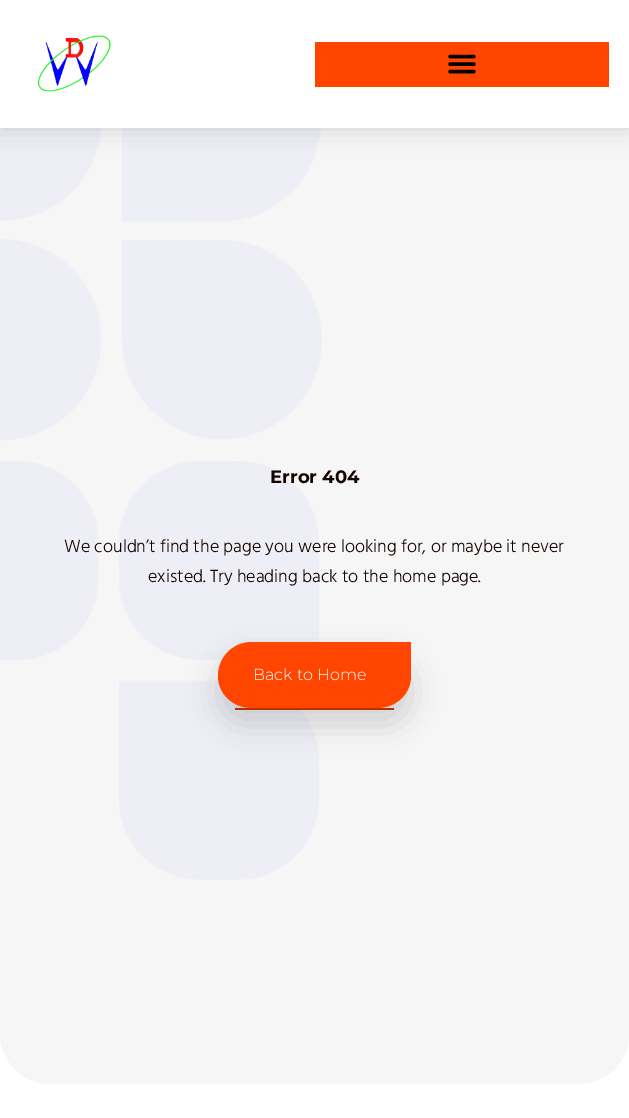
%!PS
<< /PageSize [629 1118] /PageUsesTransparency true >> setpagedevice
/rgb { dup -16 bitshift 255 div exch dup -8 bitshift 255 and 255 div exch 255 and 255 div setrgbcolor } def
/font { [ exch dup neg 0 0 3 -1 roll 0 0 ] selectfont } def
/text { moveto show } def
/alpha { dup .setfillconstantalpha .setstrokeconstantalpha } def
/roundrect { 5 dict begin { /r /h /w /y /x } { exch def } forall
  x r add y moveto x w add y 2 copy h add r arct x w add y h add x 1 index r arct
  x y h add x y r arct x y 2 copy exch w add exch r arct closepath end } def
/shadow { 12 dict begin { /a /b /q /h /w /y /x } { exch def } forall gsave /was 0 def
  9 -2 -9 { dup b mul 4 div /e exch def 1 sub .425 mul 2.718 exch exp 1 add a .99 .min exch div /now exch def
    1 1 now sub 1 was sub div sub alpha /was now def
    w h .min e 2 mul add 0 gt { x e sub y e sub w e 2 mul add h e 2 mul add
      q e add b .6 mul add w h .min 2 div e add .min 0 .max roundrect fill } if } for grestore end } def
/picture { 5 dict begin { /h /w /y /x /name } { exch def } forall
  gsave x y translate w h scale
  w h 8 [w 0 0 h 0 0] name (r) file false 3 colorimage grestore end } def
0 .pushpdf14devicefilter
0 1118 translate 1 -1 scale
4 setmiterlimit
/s1 { /Montserrat-Bold 18 font 16#140500 rgb } def
/s2 { /HindMadurai-Light 18 font 16#140500 rgb } def
/s3 { /Montserrat-Light 16 font 16#FFFFFF rgb } def
16#FFFFFF rgb
0 0 629 1118 rectfill
16#F6F6F6 rgb
0 78 moveto 629 78 lineto 629 1034 lineto 629 1061.5 606.5 1084 579 1084 curveto 50 1084 lineto 22.5 1084 0 1061.5 0 1034 curveto closepath fill
(pic3.raw) 0 128 322 752 picture
16#000000 rgb
0 0 629 128 0 12 0.15 shadow
16#FFFFFF rgb
0 0 629 128 rectfill
(pic1.raw) 38 35 73 57 picture
16#FF4500 rgb
315 42 294 45 rectfill
(pic2.raw) 448 54 28 20 picture
s1
(Error 404) 270 483 text
s2
(We couldn’t find the page you were looking for, or maybe it never) 64 552 text
(existed. Try heading back to the home page.) 148 582 text
16#000000 rgb
218 657 193 68 34 15 0.15 shadow
16#FF4500 rgb
252 642 moveto 411 642 lineto 411 676 lineto 411 694 396 708 377 708 curveto 252 708 lineto 233 708 218 694 218 676 curveto 218 657 233 642 252 642 curveto closepath fill
16#B83100 rgb
235 708 159 2 rectfill
s3
(Back to Home) 253 680 text
.poppdf14devicefilter showpage
